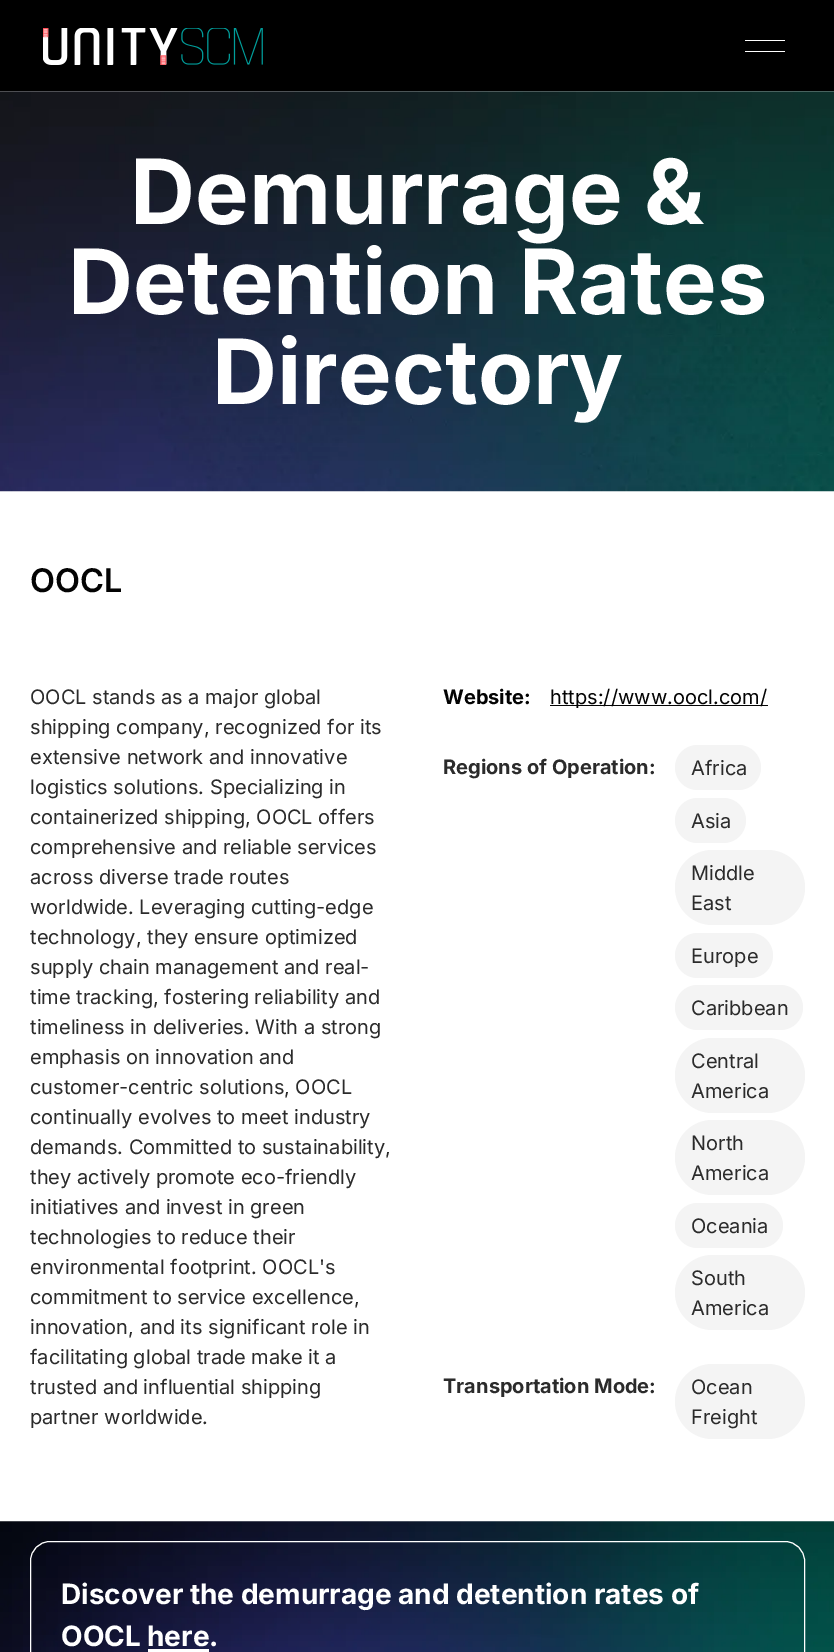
%!PS
<< /PageSize [834 1652] >> setpagedevice
/rgb { dup -16 bitshift 255 div exch dup -8 bitshift 255 and 255 div exch 255 and 255 div setrgbcolor } def
/font { [ exch dup neg 0 0 3 -1 roll 0 0 ] selectfont } def
/text { moveto show } def
/roundrect { 5 dict begin { /r /h /w /y /x } { exch def } forall
  x r add y moveto x w add y 2 copy h add r arct x w add y h add x 1 index r arct
  x y h add x y r arct x y 2 copy exch w add exch r arct closepath end } def
/picture { 5 dict begin { /h /w /y /x /name } { exch def } forall
  gsave x y translate w h scale
  w h 8 [w 0 0 h 0 0] name (r) file false 3 colorimage grestore end } def
0 1652 translate 1 -1 scale
4 setmiterlimit
/s1 { /Inter-Bold 90 font 16#FFFFFF rgb } def
/s2 { /Inter-SemiBold 32.5 font 16#030303 rgb } def
/s3 { /Inter-Regular 20 font 16#2B2B2B rgb } def
/s4 { /Inter-Bold 20 font 16#030303 rgb } def
/s5 { /Inter-Regular 20 font 16#030303 rgb } def
/s6 { /Inter-Bold 20 font 16#2B2B2B rgb } def
/s7 { /Inter-Bold 28 font 16#FFFFFF rgb } def
16#FFFFFF rgb
0 0 834 1652 rectfill
16#000000 rgb
0 0 834 91 rectfill
(pic1.raw) 43 28 220 37 picture
16#FFFFFF rgb
745 40 40 1 rectfill
745 51 40 1 rectfill
(pic2.raw) 0 91 834 401 picture
s1
(Demurrage &) 130 224 text
(Detention Rates) 68 314 text
(Directory) 212 404 text
s2
(OOCL) 30 592 text
s3
(OOCL stands as a major global) 30 704 text
(shipping company, recognized for its) 30 734 text
(extensive network and innovative) 30 764 text
(logistics solutions. Specializing in) 30 794 text
(containerized shipping, OOCL offers) 30 824 text
(comprehensive and reliable services) 30 854 text
(across diverse trade routes) 30 884 text
(worldwide. Leveraging cutting-edge) 30 914 text
(technology, they ensure optimized) 30 944 text
(supply chain management and real-) 30 974 text
(time tracking, fostering reliability and) 30 1004 text
(timeliness in deliveries. With a strong) 30 1034 text
(emphasis on innovation and) 30 1064 text
(customer-centric solutions, OOCL) 30 1094 text
(continually evolves to meet industry) 30 1124 text
(demands. Committed to sustainability,) 30 1154 text
(they actively promote eco-friendly) 30 1184 text
(initiatives and invest in green) 30 1214 text
(technologies to reduce their) 30 1244 text
(environmental footprint. OOCL's) 30 1274 text
(commitment to service excellence,) 30 1304 text
(innovation, and its significant role in) 30 1334 text
(facilitating global trade make it a) 30 1364 text
(trusted and influential shipping) 30 1394 text
(partner worldwide.) 30 1424 text
s4
(Website:) 443 704 text
550 705 218 1 rectfill
s5
(https://www.oocl.com/) 550 704 text
s6
(Regions of Operation:) 443 774 text
16#F4F4F4 rgb
675 745 86 45 22.5 roundrect fill
s3
(Africa) 691 775 text
16#F4F4F4 rgb
675 798 71 45 22.5 roundrect fill
s3
(Asia) 691 828 text
16#F4F4F4 rgb
675 850 130 75 37.5 roundrect fill
s3
(Middle) 691 880 text
(East) 691 910 text
16#F4F4F4 rgb
675 933 98 45 22.5 roundrect fill
s3
(Europe) 691 963 text
16#F4F4F4 rgb
675 985 128 45 22.5 roundrect fill
s3
(Caribbean) 691 1015 text
16#F4F4F4 rgb
675 1038 130 75 37.5 roundrect fill
s3
(Central) 691 1068 text
(America) 691 1098 text
16#F4F4F4 rgb
675 1120 130 75 37.5 roundrect fill
s3
(North) 691 1150 text
(America) 691 1180 text
16#F4F4F4 rgb
675 1203 108 45 22.5 roundrect fill
s3
(Oceania) 691 1233 text
16#F4F4F4 rgb
675 1255 130 75 37.5 roundrect fill
s3
(South) 691 1285 text
(America) 691 1315 text
s6
(Transportation Mode:) 443 1393 text
16#F4F4F4 rgb
675 1364 130 75 37.5 roundrect fill
s3
(Ocean) 691 1394 text
(Freight) 691 1424 text
(pic3.raw) 0 1521 834 131 picture
16#FFFFFF rgb
30.5 1541.5 774 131 19.5 roundrect stroke
s7
(Discover the demurrage and detention rates of) 61 1604 text
(OOCL) 61 1646 text
(here.) 147 1646 text
148 1649 61 3 rectfill
showpage
